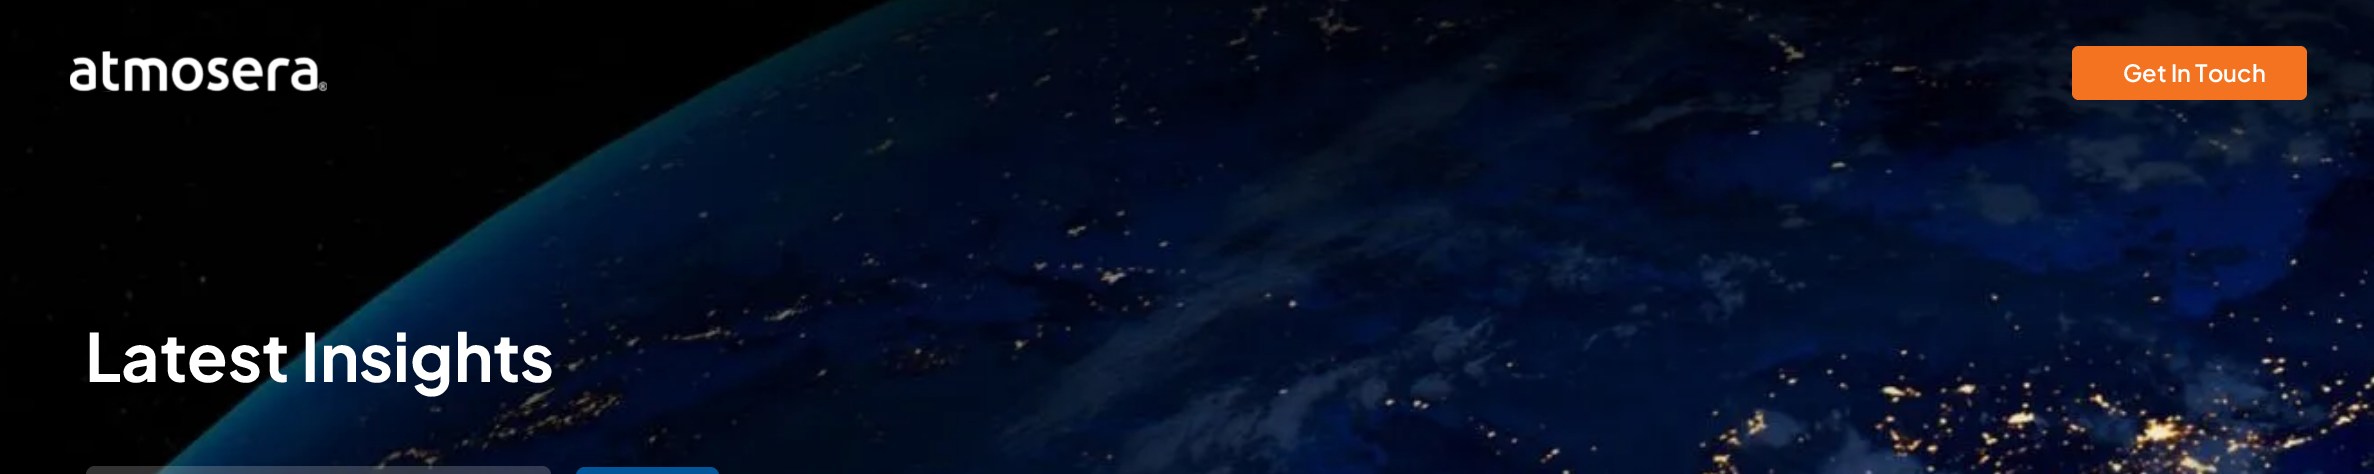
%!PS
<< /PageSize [2374 474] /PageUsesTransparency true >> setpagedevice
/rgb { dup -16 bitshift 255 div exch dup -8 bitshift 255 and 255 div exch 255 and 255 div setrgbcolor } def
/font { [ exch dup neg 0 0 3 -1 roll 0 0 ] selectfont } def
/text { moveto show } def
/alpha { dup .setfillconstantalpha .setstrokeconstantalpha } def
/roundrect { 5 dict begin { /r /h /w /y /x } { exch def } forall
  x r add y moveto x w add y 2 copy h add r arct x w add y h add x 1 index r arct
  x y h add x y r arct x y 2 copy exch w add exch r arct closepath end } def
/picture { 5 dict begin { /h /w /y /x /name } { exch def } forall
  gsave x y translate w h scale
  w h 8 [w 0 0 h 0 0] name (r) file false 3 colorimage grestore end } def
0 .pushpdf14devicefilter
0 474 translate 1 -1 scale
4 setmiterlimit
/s1 { /PlusJakartaSans-SemiBold 23.75 font 16#FFFFFF rgb } def
/s2 { /PlusJakartaSans-Bold 66.5 font 16#FFFFFF rgb } def
16#FFFFFF rgb
0 0 2374 474 rectfill
(pic2.raw) 0 0 2374 474 picture
(pic1.raw) 70 51 257 41 picture
16#F37321 rgb
2072 46 235 54 7 roundrect fill
s1
(Get In Touch) 2123 82 text
s2
(Latest Insights) 85 382 text
0.2 alpha
16#F8F8F8 rgb
86 466 465 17 9 roundrect fill
1 alpha
16#005698 rgb
576 467 143 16 9 roundrect fill
.poppdf14devicefilter showpage
